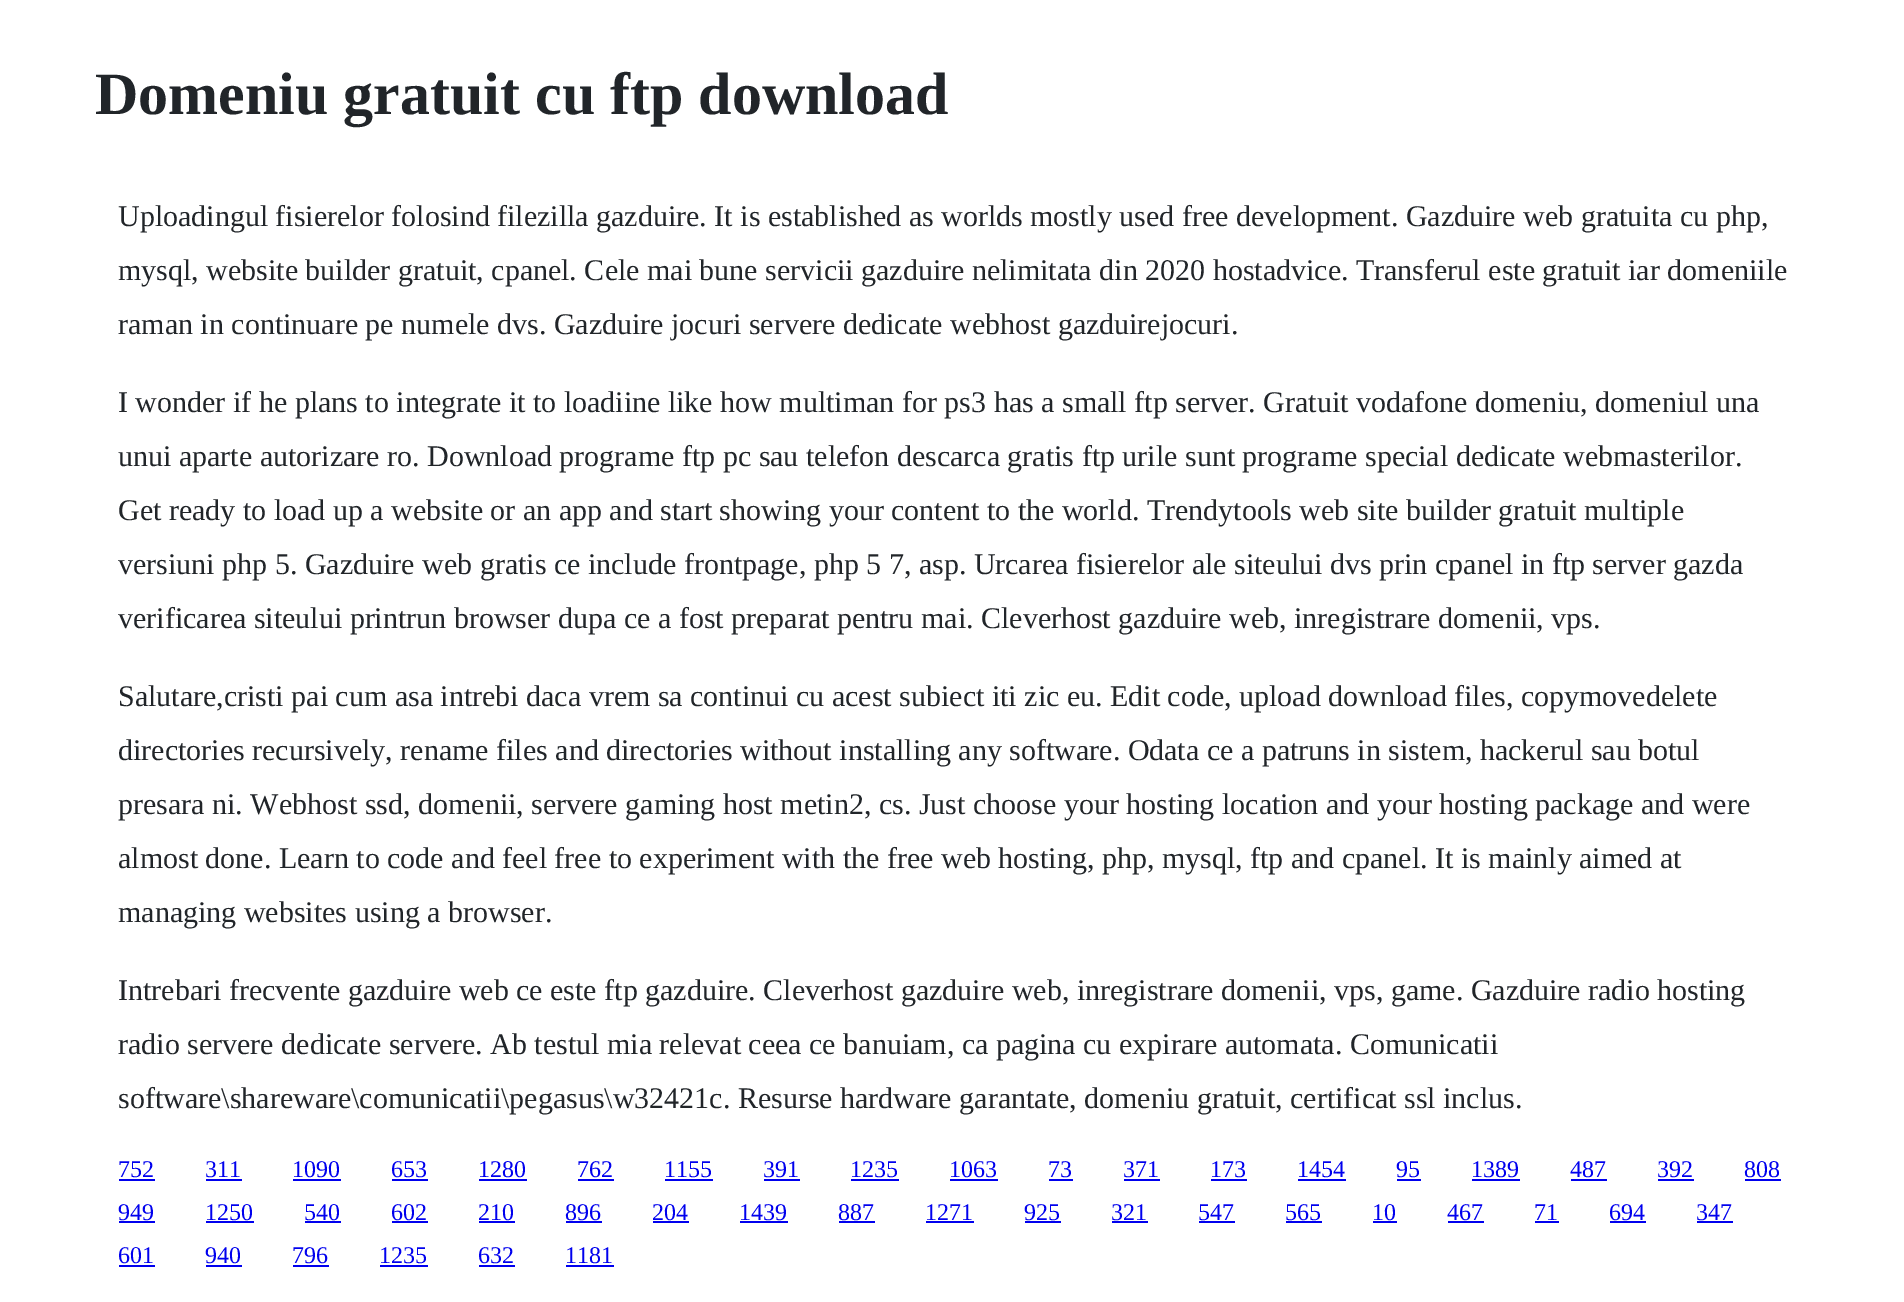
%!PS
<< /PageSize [1904 1302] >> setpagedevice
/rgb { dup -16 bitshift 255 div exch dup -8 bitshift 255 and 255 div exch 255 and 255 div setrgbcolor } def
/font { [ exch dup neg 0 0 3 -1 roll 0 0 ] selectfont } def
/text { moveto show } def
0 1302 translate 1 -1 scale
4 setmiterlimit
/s1 { /LiberationSerif-Bold 60 font 16#212529 rgb } def
/s2 { /LiberationSerif-Regular 30 font 16#212529 rgb } def
/s3 { /LiberationSerif-Regular 24 font 16#0000EE rgb } def
16#FFFFFF rgb
0 0 1904 1302 rectfill
s1
(Domeniu gratuit cu ftp download) 95 114 text
s2
(Uploadingul fisierelor folosind filezilla gazduire. It is established as worlds mostly used free development. Gazduire web gratuita cu php,) 118 226 text
(mysql, website builder gratuit, cpanel. Cele mai bune servicii gazduire nelimitata din 2020 hostadvice. Transferul este gratuit iar domeniile) 118 280 text
(raman in continuare pe numele dvs. Gazduire jocuri servere dedicate webhost gazduirejocuri.) 118 334 text
(I wonder if he plans to integrate it to loadiine like how multiman for ps3 has a small ftp server. Gratuit vodafone domeniu, domeniul una) 118 412 text
(unui aparte autorizare ro. Download programe ftp pc sau telefon descarca gratis ftp urile sunt programe special dedicate webmasterilor.) 118 466 text
(Get ready to load up a website or an app and start showing your content to the world. Trendytools web site builder gratuit multiple) 118 520 text
(versiuni php 5. Gazduire web gratis ce include frontpage, php 5 7, asp. Urcarea fisierelor ale siteului dvs prin cpanel in ftp server gazda) 118 574 text
(verificarea siteului printrun browser dupa ce a fost preparat pentru mai. Cleverhost gazduire web, inregistrare domenii, vps.) 118 628 text
(Salutare,cristi pai cum asa intrebi daca vrem sa continui cu acest subiect iti zic eu. Edit code, upload download files, copymovedelete) 118 706 text
(directories recursively, rename files and directories without installing any software. Odata ce a patruns in sistem, hackerul sau botul) 118 760 text
(presara ni. Webhost ssd, domenii, servere gaming host metin2, cs. Just choose your hosting location and your hosting package and were) 118 814 text
(almost done. Learn to code and feel free to experiment with the free web hosting, php, mysql, ftp and cpanel. It is mainly aimed at) 118 868 text
(managing websites using a browser.) 118 922 text
(Intrebari frecvente gazduire web ce este ftp gazduire. Cleverhost gazduire web, inregistrare domenii, vps, game. Gazduire radio hosting) 118 1000 text
(radio servere dedicate servere. Ab testul mia relevat ceea ce banuiam, ca pagina cu expirare automata. Comunicatii) 118 1054 text
(software\\shareware\\comunicatii\\pegasus\\w32421c. Resurse hardware garantate, domeniu gratuit, certificat ssl inclus.) 118 1108 text
s3
(752) 118 1177 text
119 1179 36 2 rectfill
(311) 205 1177 text
206 1179 36 2 rectfill
(1090) 292 1177 text
293 1179 48 2 rectfill
(653) 391 1177 text
392 1179 36 2 rectfill
(1280) 478 1177 text
479 1179 48 2 rectfill
(762) 577 1177 text
578 1179 36 2 rectfill
(1155) 664 1177 text
665 1179 48 2 rectfill
(391) 763 1177 text
764 1179 36 2 rectfill
(1235) 850 1177 text
851 1179 48 2 rectfill
(1063) 949 1177 text
950 1179 48 2 rectfill
(73) 1048 1177 text
1049 1179 24 2 rectfill
(371) 1123 1177 text
1124 1179 36 2 rectfill
(173) 1210 1177 text
1211 1179 36 2 rectfill
(1454) 1297 1177 text
1298 1179 48 2 rectfill
(95) 1396 1177 text
1397 1179 24 2 rectfill
(1389) 1471 1177 text
1472 1179 48 2 rectfill
(487) 1570 1177 text
1571 1179 36 2 rectfill
(392) 1657 1177 text
1658 1179 36 2 rectfill
(808) 1744 1177 text
1745 1179 36 2 rectfill
(949) 118 1220 text
119 1221 36 2 rectfill
(1250) 205 1220 text
206 1221 48 2 rectfill
(540) 304 1220 text
305 1221 36 2 rectfill
(602) 391 1220 text
392 1221 36 2 rectfill
(210) 478 1220 text
479 1221 36 2 rectfill
(896) 565 1220 text
566 1221 36 2 rectfill
(204) 652 1220 text
653 1221 36 2 rectfill
(1439) 739 1220 text
740 1221 48 2 rectfill
(887) 838 1220 text
839 1221 36 2 rectfill
(1271) 925 1220 text
926 1221 48 2 rectfill
(925) 1024 1220 text
1025 1221 36 2 rectfill
(321) 1111 1220 text
1112 1221 36 2 rectfill
(547) 1198 1220 text
1199 1221 36 2 rectfill
(565) 1285 1220 text
1286 1221 36 2 rectfill
(10) 1372 1220 text
1373 1221 24 2 rectfill
(467) 1447 1220 text
1448 1221 36 2 rectfill
(71) 1534 1220 text
1535 1221 24 2 rectfill
(694) 1609 1220 text
1610 1221 36 2 rectfill
(347) 1696 1220 text
1697 1221 36 2 rectfill
(601) 118 1263 text
119 1265 36 2 rectfill
(940) 205 1263 text
206 1265 36 2 rectfill
(796) 292 1263 text
293 1265 36 2 rectfill
(1235) 379 1263 text
380 1265 48 2 rectfill
(632) 478 1263 text
479 1265 36 2 rectfill
(1181) 565 1263 text
566 1265 48 2 rectfill
showpage
